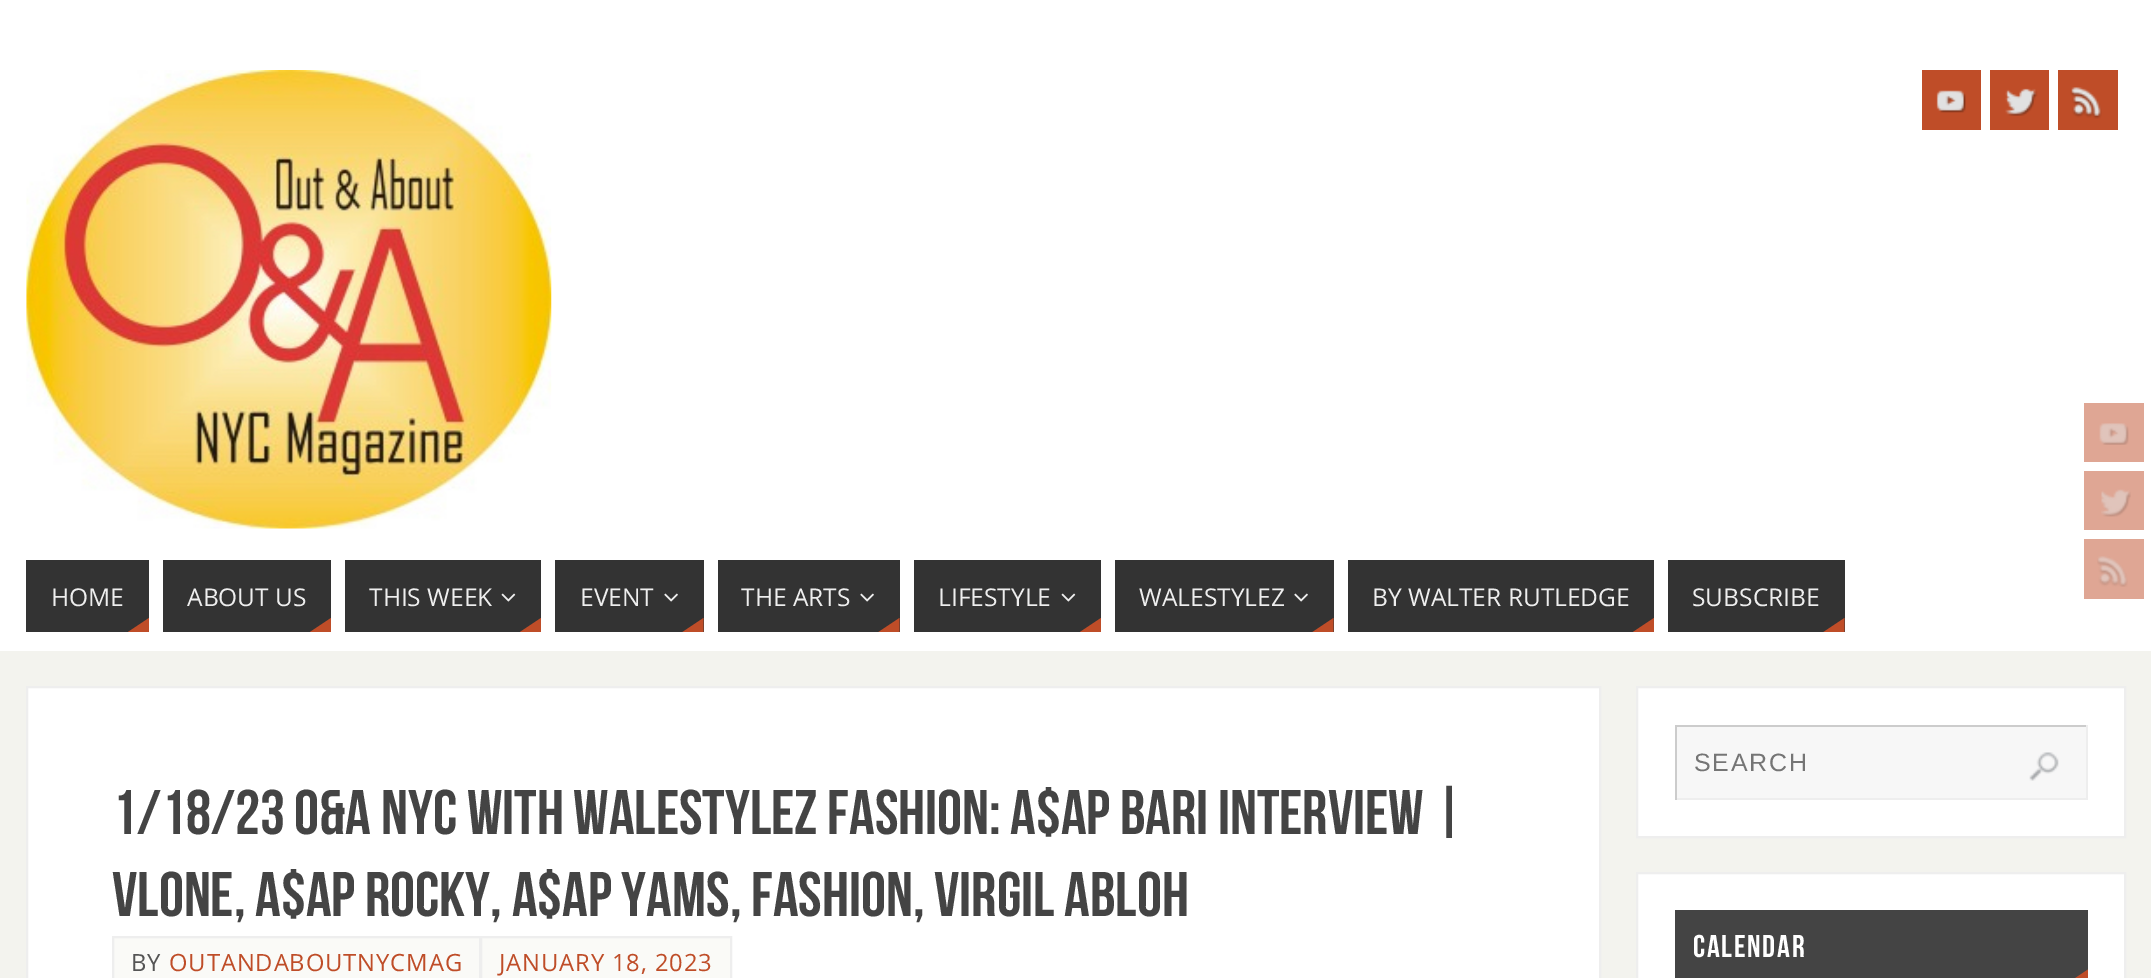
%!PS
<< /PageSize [2151 978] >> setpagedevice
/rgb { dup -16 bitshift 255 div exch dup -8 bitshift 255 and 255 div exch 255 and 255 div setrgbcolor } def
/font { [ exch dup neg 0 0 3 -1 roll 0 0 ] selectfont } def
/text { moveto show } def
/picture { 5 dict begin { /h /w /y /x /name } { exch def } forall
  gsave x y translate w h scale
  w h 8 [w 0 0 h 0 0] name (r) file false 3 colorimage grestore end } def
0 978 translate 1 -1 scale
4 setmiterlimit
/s1 { /OpenSans-Regular 24.5 font 16#EEEEEE rgb } def
/s2 { /BebasNeue-Regular 63 font 16#444444 rgb } def
16#F3F3EE rgb
0 0 2151 978 rectfill
16#FFFFFF rgb
0 0 2151 651 rectfill
(pic1.raw) 26 70 526 459 picture
16#BF4D28 rgb
1922 70 59 60 rectfill
(pic2.raw) 1936 90 30 23 picture
1990 70 59 60 rectfill
(pic3.raw) 2005 88 33 28 picture
2058 70 60 60 rectfill
(pic4.raw) 2070 87 32 32 picture
16#333333 rgb
26 560 123 72 rectfill
s1
(HOME) 51 606 text
16#BF4D28 rgb
149 632 moveto 128 632 lineto 149 618 lineto closepath fill
16#333333 rgb
163 560 168 72 rectfill
s1
(ABOUT US) 187 606 text
16#BF4D28 rgb
331 632 moveto 310 632 lineto 331 618 lineto closepath fill
16#333333 rgb
345 560 196 72 rectfill
s1
(THIS WEEK) 369 606 text
(pic5.raw) 501 593 15 9 picture
16#BF4D28 rgb
541 632 moveto 520 632 lineto 541 618 lineto closepath fill
16#333333 rgb
555 560 149 72 rectfill
s1
(EVENT) 580 606 text
(pic6.raw) 664 593 14 9 picture
16#BF4D28 rgb
703.5 632 moveto 682.5 632 lineto 703.5 618 lineto closepath fill
16#333333 rgb
718 560 182 72 rectfill
s1
(THE ARTS) 741 606 text
(pic6.raw) 860 593 14 9 picture
16#BF4D28 rgb
899.5 632 moveto 878.5 632 lineto 899.5 618 lineto closepath fill
16#333333 rgb
914 560 187 72 rectfill
s1
(LIFESTYLE) 938 606 text
(pic5.raw) 1061 593 15 9 picture
16#BF4D28 rgb
1101 632 moveto 1080 632 lineto 1101 618 lineto closepath fill
16#333333 rgb
1115 560 219 72 rectfill
s1
(WALESTYLEZ) 1139 606 text
(pic6.raw) 1294 593 14 9 picture
16#BF4D28 rgb
1333.5 632 moveto 1312.5 632 lineto 1333.5 618 lineto closepath fill
16#333333 rgb
1348 560 306 72 rectfill
s1
(BY WALTER RUTLEDGE) 1372 606 text
16#BF4D28 rgb
1654 632 moveto 1633 632 lineto 1654 618 lineto closepath fill
16#333333 rgb
1668 560 177 72 rectfill
s1
(SUBSCRIBE) 1692 606 text
16#BF4D28 rgb
1844.5 632 moveto 1823.5 632 lineto 1844.5 618 lineto closepath fill
16#DFA694 rgb
2084 403 60 59 rectfill
(pic7.raw) 2099 423 30 22 picture
2084 471 60 59 rectfill
(pic8.raw) 2101 489 30 28 picture
2084 539 60 60 rectfill
(pic9.raw) 2097 556 31 31 picture
16#FFFFFF rgb
27 687 moveto 1600 687 lineto 1600 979 lineto 27 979 lineto closepath gsave fill grestore
16#EEEEEE rgb
2 setlinewidth
stroke
s2
(1/18/23 O&A NYC WITH WALESTYLEZ FASHION: A$AP Bari Interview |) 112 834 text
(Vlone, A$AP Rocky, A$AP Yams, Fashion, Virgil Abloh) 112 916 text
16#FAFAF7 rgb
113 937 moveto 480 937 lineto 480 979 lineto 113 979 lineto closepath gsave fill grestore
16#EEEEEE rgb
stroke
/OpenSans-Regular 23.75 font
16#555555 rgb
131 971 moveto 0.9 0 (BY) ashow
16#BF4D28 rgb
169 971 moveto 0.9 0 (OUTANDABOUTNYCMAG) ashow
16#FAFAF7 rgb
481 937 moveto 731 937 lineto 731 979 lineto 481 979 lineto closepath gsave fill grestore
16#EEEEEE rgb
stroke
16#BF4D28 rgb
499 971 moveto 0.9 0 (JANUARY 18, 2023) ashow
16#FFFFFF rgb
1637 687 moveto 2125 687 lineto 2125 837 lineto 1637 837 lineto closepath gsave fill grestore
16#EEEEEE rgb
stroke
16#F7F7F7 rgb
1677 727 409 71 rectfill
16#CCCCCC rgb
1675 725 413 2 rectfill
16#EEEEEE rgb
2086 725 2 75 rectfill
1675 798 413 2 rectfill
16#CCCCCC rgb
1675 725 2 75 rectfill
/LiberationSans-Regular 25 font
16#757575 rgb
1694 771 moveto 1.75 0 (SEARCH) ashow
(pic10.raw) 2029 752 30 29 picture
16#FFFFFF rgb
1637 873 moveto 2125 873 lineto 2125 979 lineto 1637 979 lineto closepath gsave fill grestore
16#EEEEEE rgb
stroke
16#444444 rgb
1675 910 413 68 rectfill
/BebasNeue-Regular 31.5 font
16#FFFFFF rgb
1693 957 moveto 1.75 0 (CALENDAR) ashow
16#BF4D28 rgb
2088 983.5 moveto 2067 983.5 lineto 2088 969.5 lineto closepath fill
showpage
